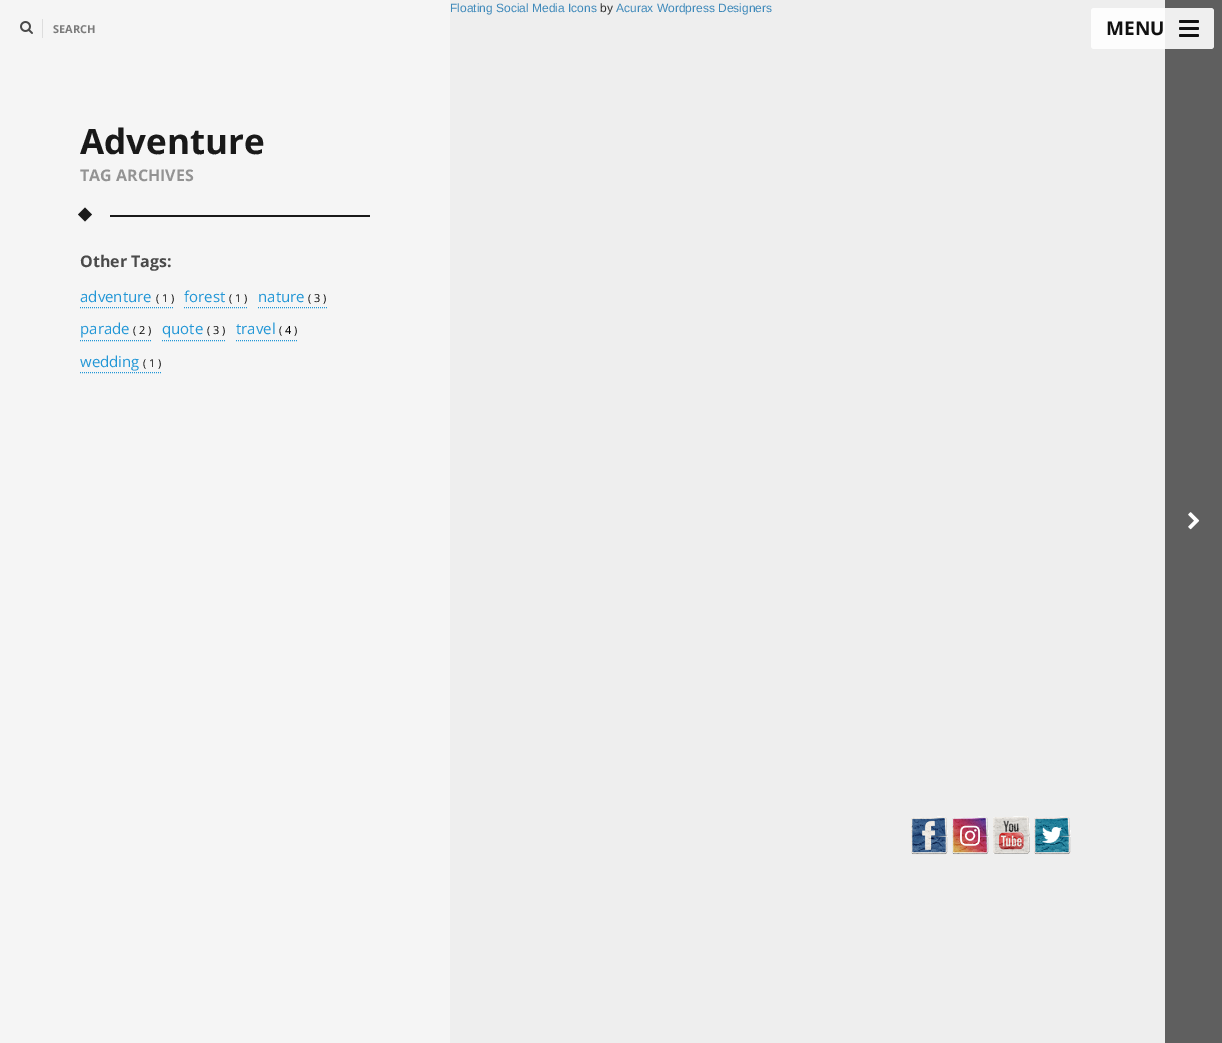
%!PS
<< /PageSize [1222 1043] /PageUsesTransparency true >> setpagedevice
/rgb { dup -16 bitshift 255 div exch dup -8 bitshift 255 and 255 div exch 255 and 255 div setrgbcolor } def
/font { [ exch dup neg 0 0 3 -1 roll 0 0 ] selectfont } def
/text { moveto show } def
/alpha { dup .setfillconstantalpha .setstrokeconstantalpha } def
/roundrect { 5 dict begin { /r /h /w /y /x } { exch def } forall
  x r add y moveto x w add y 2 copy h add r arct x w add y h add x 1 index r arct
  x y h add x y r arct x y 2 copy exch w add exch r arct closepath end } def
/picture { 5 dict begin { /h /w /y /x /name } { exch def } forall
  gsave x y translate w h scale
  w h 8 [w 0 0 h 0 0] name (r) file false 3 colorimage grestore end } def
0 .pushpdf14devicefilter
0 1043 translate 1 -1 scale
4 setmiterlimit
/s1 { /LiberationSans-Regular 12 font 16#3E89BA rgb } def
/s2 { /LiberationSans-Regular 12 font 16#303030 rgb } def
/s3 { /OpenSans-Bold 11 font 16#7B7B7B rgb } def
/s4 { /OpenSans-Bold 35 font 16#191919 rgb } def
/s5 { /OpenSans-Bold 16 font 16#939393 rgb } def
/s6 { /OpenSans-Bold 16 font 16#4A4A4A rgb } def
/s7 { /OpenSans-Regular 15 font 16#2196D6 rgb } def
/s8 { /OpenSans-Regular 11 font 16#000000 rgb } def
/s9 { /OpenSans-Bold 19 font 16#111111 rgb } def
16#EEEEEE rgb
0 0 1222 1043 rectfill
s1
(Floating Social Media Icons) 450 12 text
s2
(by) 600 12 text
s1
(Acurax Wordpress Designers) 616 12 text
16#F5F5F5 rgb
0 0 450 1043 rectfill
(pic1.raw) 20 21 13 13 picture
s3
(SEARCH) 53 33 text
16#DDDDDD rgb
42 19 1 19 rectfill
s4
(Adventure) 80 154 text
s5
(TAG ARCHIVES) 80 181 text
16#191919 rgb
85 207.5 moveto 92 214.5 lineto 85 221.5 lineto 78 214.5 lineto closepath fill
110 215 260 2 rectfill
s6
(Other Tags:) 80 267 text
16#2196D6 rgb
[1 1] 0 setdash
80 307.5 moveto 174 307.5 lineto stroke
s7
(adventure) 80 302 text
s8
(\( 1 \)) 156 302 text
16#2196D6 rgb
184 307.5 moveto 248 307.5 lineto stroke
s7
(forest) 184 302 text
s8
(\( 1 \)) 229 302 text
16#2196D6 rgb
258 307.5 moveto 327 307.5 lineto stroke
s7
(nature) 258 302 text
s8
(\( 3 \)) 308 302 text
16#2196D6 rgb
80 340.5 moveto 152 340.5 lineto stroke
s7
(parade) 80 334 text
s8
(\( 2 \)) 133 334 text
16#2196D6 rgb
162 340.5 moveto 226 340.5 lineto stroke
s7
(quote) 162 334 text
s8
(\( 3 \)) 207 334 text
16#2196D6 rgb
236 340.5 moveto 297 340.5 lineto stroke
s7
(travel) 236 334 text
s8
(\( 4 \)) 279 334 text
16#2196D6 rgb
80 372.5 moveto 162 372.5 lineto stroke
s7
(wedding) 80 367 text
s8
(\( 1 \)) 143 367 text
16#5F5F5F rgb
1165 0 57 1043 rectfill
(pic2.raw) 1188 512 12 18 picture
0.9 alpha
16#FFFFFF rgb
1091 8 123 41 3 roundrect fill
1 alpha
s9
(MENU) 1106 35 text
1179 20 20 3 1.5 roundrect fill
1179 27 20 3 1.5 roundrect fill
1179 34 20 3 1.5 roundrect fill
(pic3.raw) 911 816 37 39 picture
(pic4.raw) 952 816 37 39 picture
(pic5.raw) 993 816 37 38 picture
(pic6.raw) 1034 816 37 39 picture
.poppdf14devicefilter showpage
